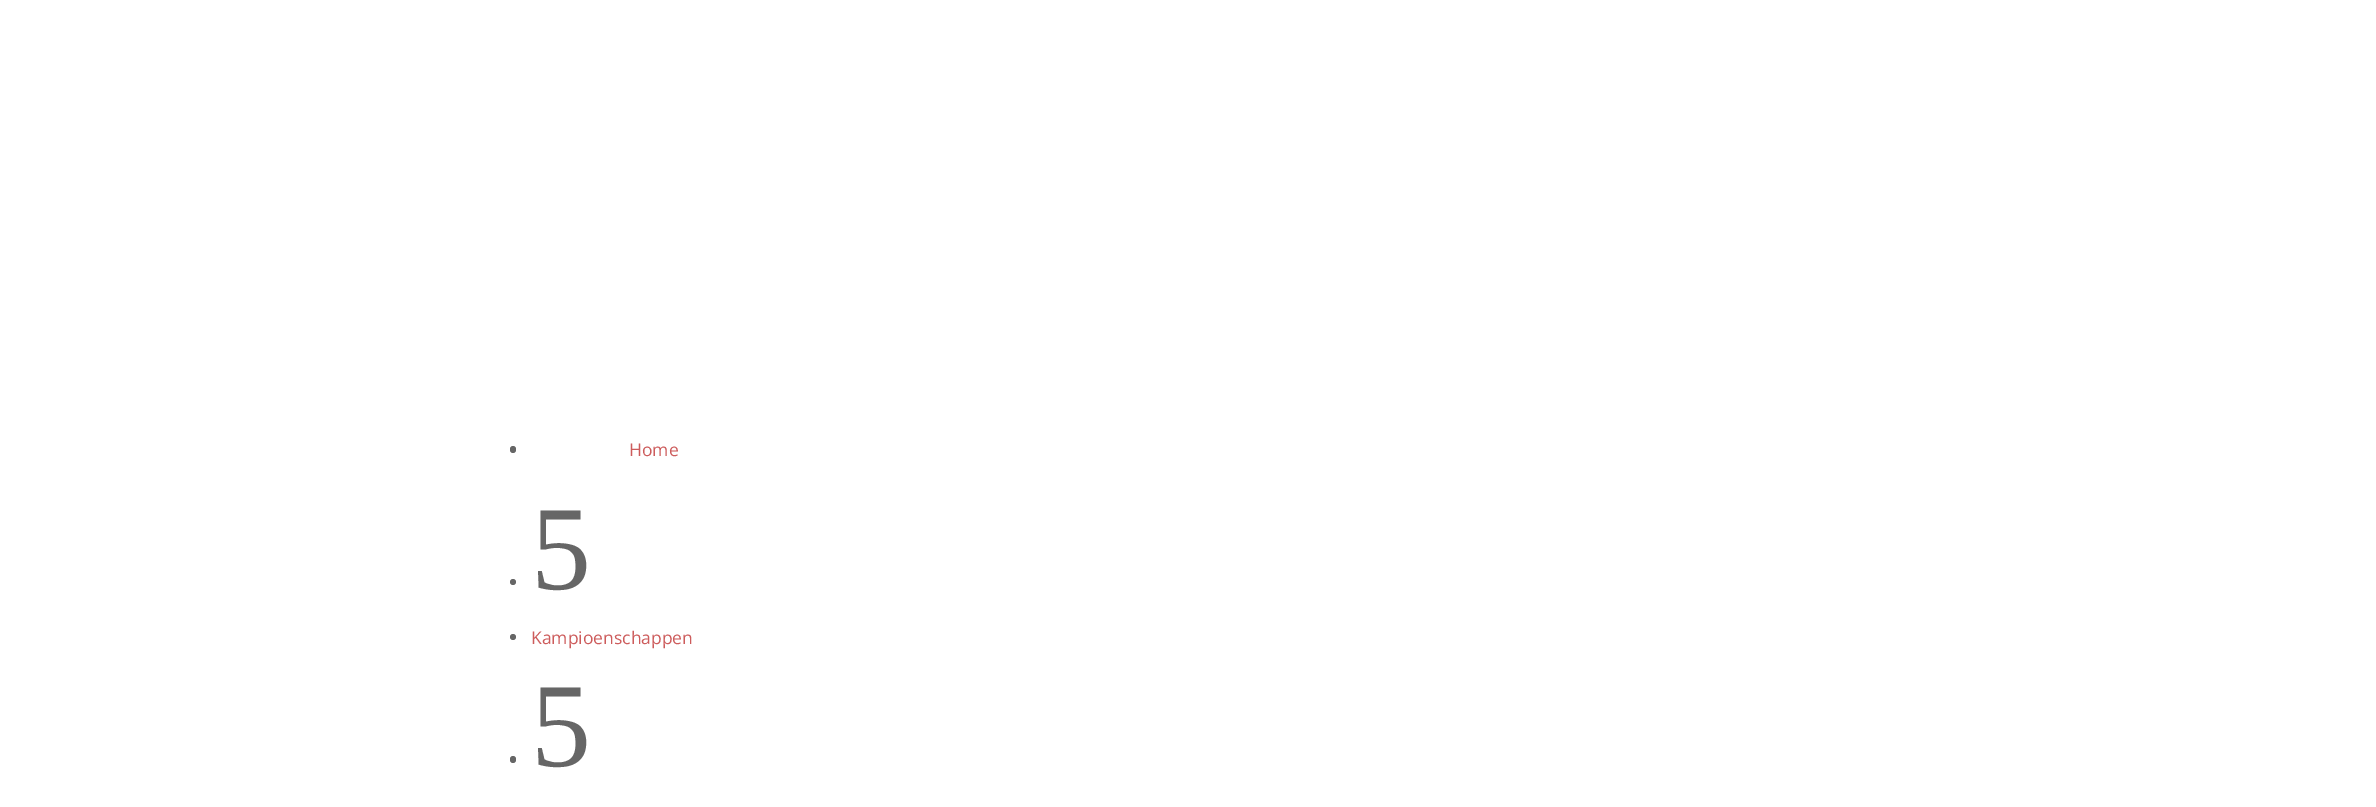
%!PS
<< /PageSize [2376 807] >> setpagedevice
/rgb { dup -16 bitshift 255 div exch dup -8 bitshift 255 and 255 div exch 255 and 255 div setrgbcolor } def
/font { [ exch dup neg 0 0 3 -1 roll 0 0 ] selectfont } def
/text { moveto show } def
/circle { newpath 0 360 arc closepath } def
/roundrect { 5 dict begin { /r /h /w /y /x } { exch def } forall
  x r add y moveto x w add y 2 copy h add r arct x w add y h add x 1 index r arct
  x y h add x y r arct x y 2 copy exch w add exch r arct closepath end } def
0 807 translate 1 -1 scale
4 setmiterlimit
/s1 { /OpenSans-Regular 17.5 font 16#CD5C5C rgb } def
/s2 { /LiberationSerif-Regular 120 font 16#666666 rgb } def
16#FFFFFF rgb
0 0 2376 807 rectfill
16#666666 rgb
510 446 6 7 3 roundrect fill
s1
(Home) 629 456 text
16#666666 rgb
513 582 3 circle fill
s2
(5) 531 589 text
513 637 3 circle fill
s1
(Kampioenschappen) 531 644 text
16#666666 rgb
510 756 6 7 3 roundrect fill
s2
(5) 531 766 text
showpage
